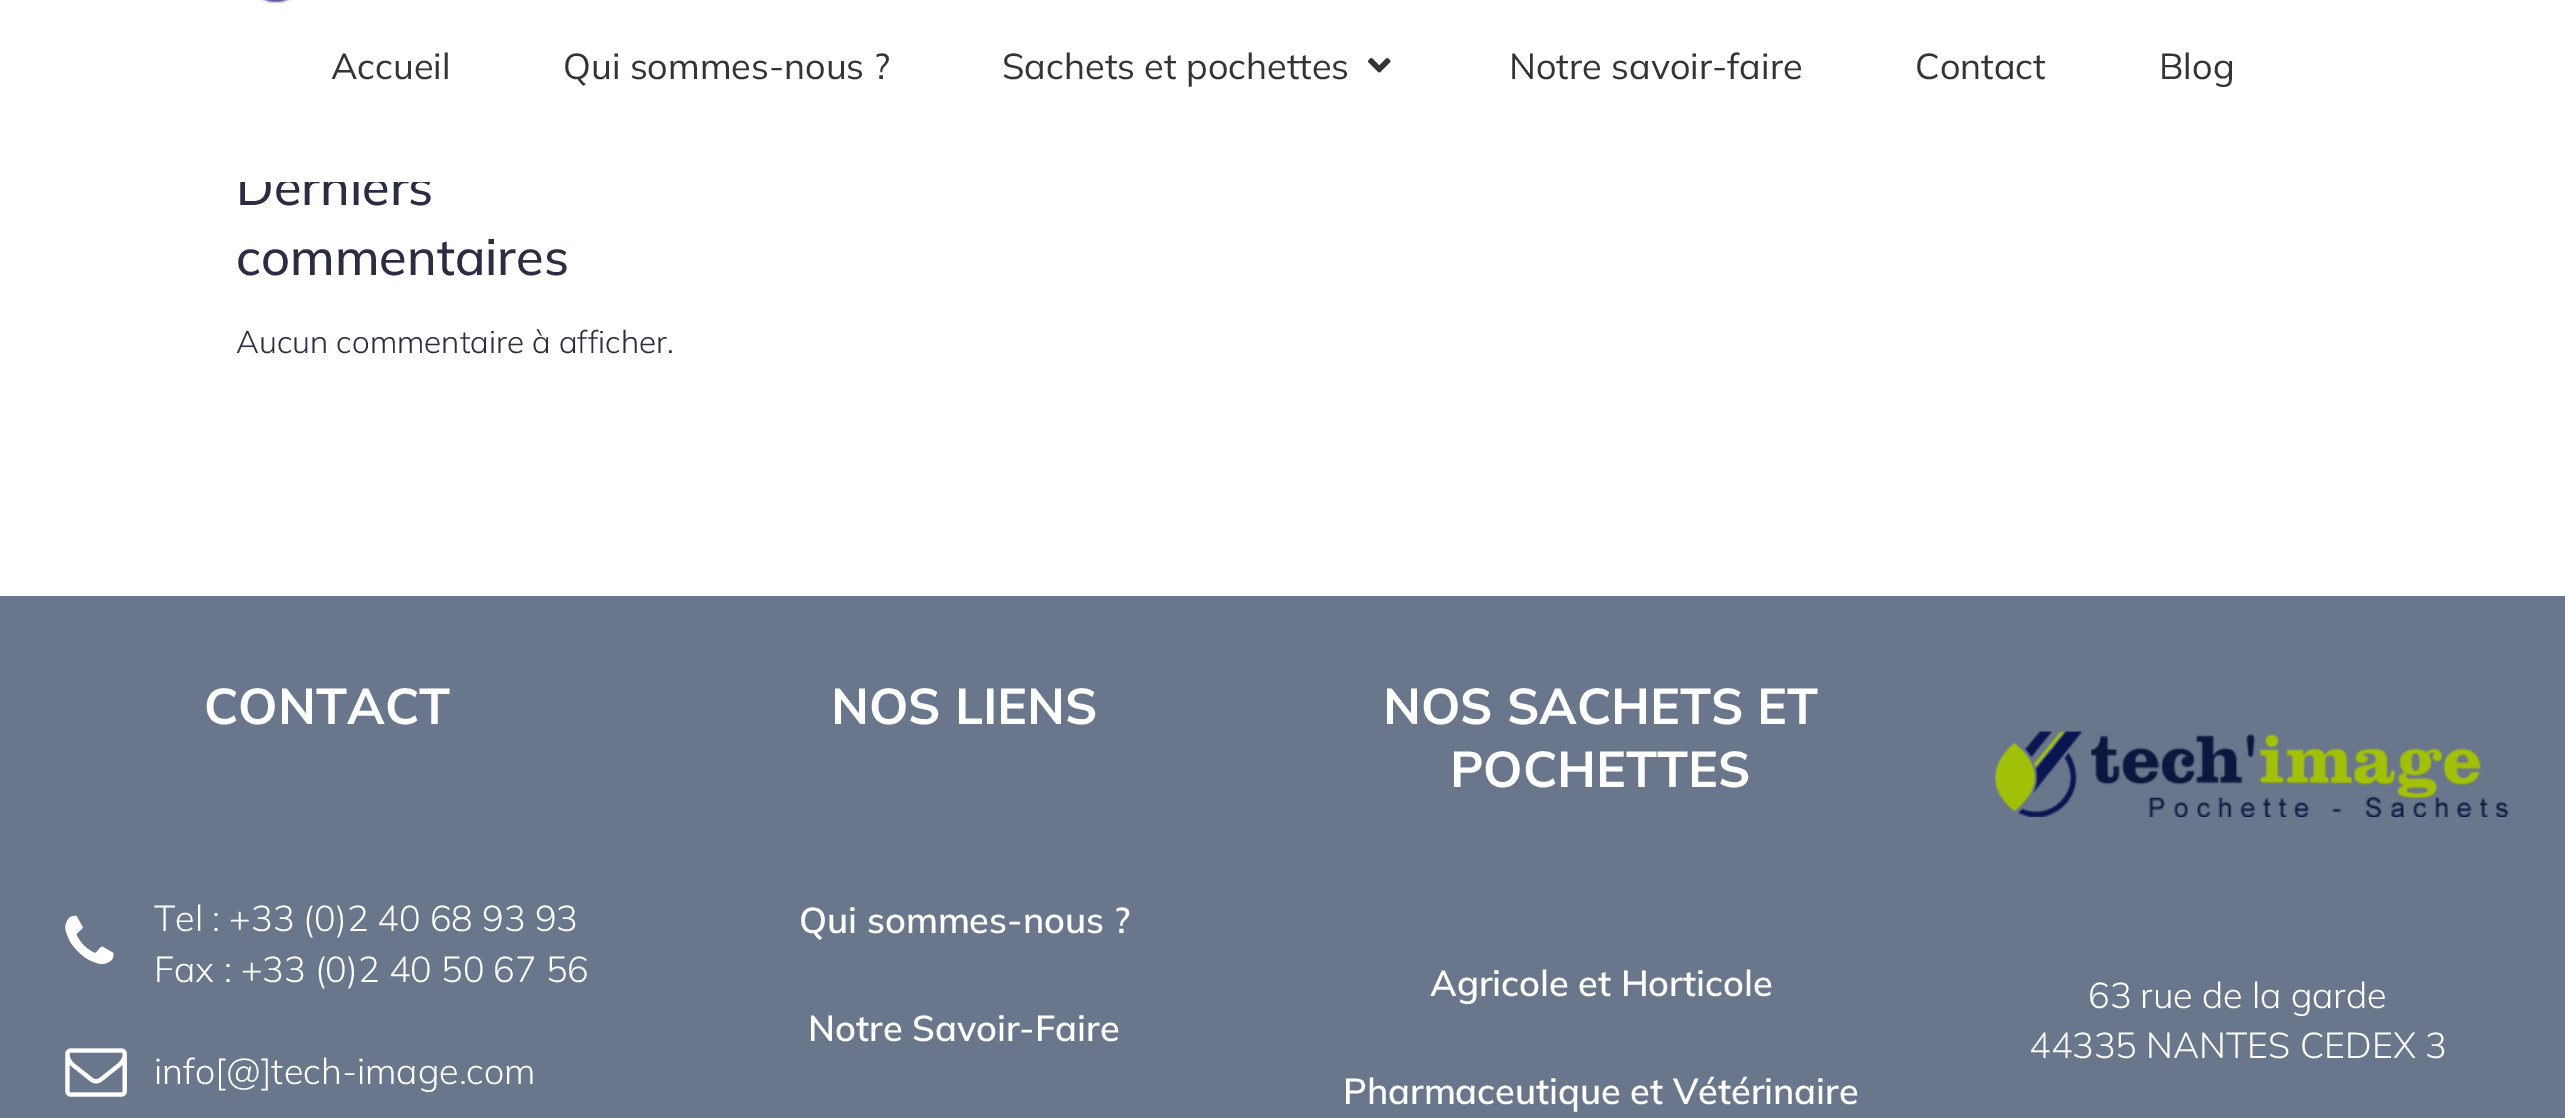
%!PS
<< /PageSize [2565 1118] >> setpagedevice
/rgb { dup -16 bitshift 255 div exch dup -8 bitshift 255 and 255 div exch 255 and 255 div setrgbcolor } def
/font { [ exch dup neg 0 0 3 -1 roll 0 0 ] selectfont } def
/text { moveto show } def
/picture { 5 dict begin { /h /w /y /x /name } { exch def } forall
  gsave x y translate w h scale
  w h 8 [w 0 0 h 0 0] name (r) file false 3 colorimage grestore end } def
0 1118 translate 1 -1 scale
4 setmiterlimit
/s1 { /Mulish-Medium 50.5 font 16#2B2D42 rgb } def
/s2 { /Mulish-Regular 36 font 16#353333 rgb } def
/s3 { /Mulish-Light 31.5 font 16#2B2D42 rgb } def
/s4 { /Mulish-Bold 50.25 font 16#FFFFFF rgb } def
/s5 { /Mulish-Light 36 font 16#FFFFFF rgb } def
/s6 { /Mulish-SemiBold 36 font 16#FFFFFF rgb } def
16#FFFFFF rgb
0 0 2565 1118 rectfill
s1
(Derniers) 236 205 text
16#FFFFFF rgb
240 169 190 13 rectfill
(pic1.raw) 261 0 30 3 picture
s2
(Accueil) 331 79 text
(Qui sommes-nous ?) 563 79 text
(Sachets et pochettes) 1002 79 text
(pic2.raw) 1368 58 23 15 picture
(Notre savoir-faire) 1509 79 text
(Contact) 1915 79 text
(Blog) 2159 79 text
s1
(commentaires) 236 275 text
s3
(Aucun commentaire à afficher.) 236 353 text
16#69768B rgb
0 596 2565 522 rectfill
s4
(CONTACT) 204 724 text
(pic3.raw) 65 915 49 50 picture
s5
(Tel : +33 \(0\)2 40 68 93 93) 154 931 text
(Fax : +33 \(0\)2 40 50 67 56) 154 982 text
(pic4.raw) 65 1048 62 49 picture
(info[@]tech-image.com) 154 1084 text
s4
(NOS LIENS) 831 724 text
s6
(Qui sommes-nous ?) 799 933 text
(Notre Savoir-Faire) 808 1041 text
s4
(NOS SACHETS ET) 1383 724 text
(POCHETTES) 1450 787 text
s6
(Agricole et Horticole) 1430 996 text
(Pharmaceutique et Vétérinaire) 1343 1104 text
(pic5.raw) 1994 731 515 86 picture
s5
(63 rue de la garde) 2088 1008 text
(44335 NANTES CEDEX 3) 2029 1058 text
showpage
